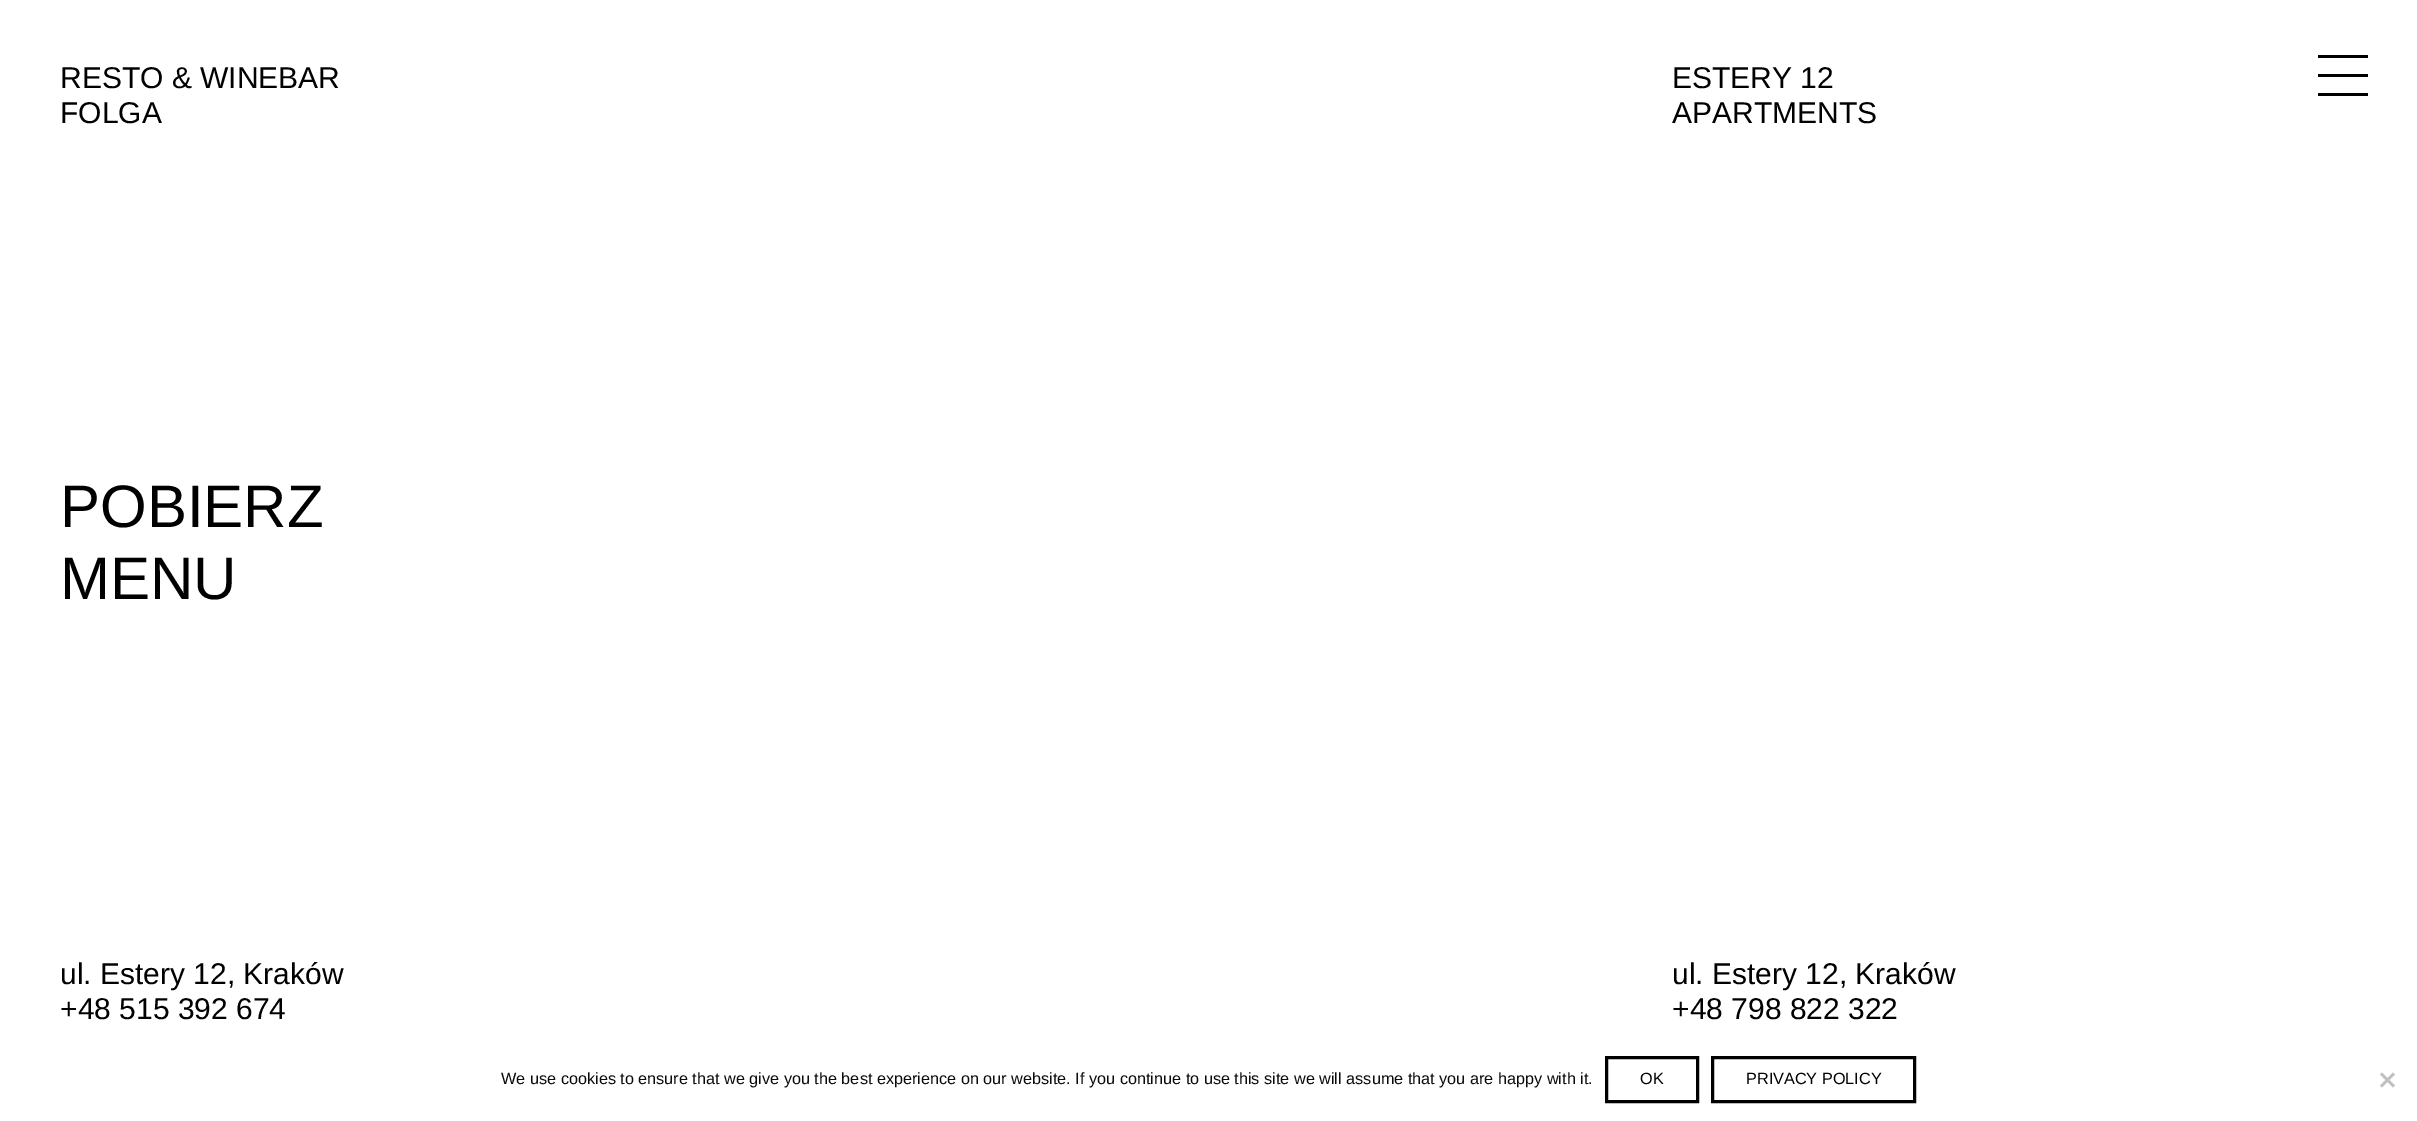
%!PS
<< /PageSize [2417 1121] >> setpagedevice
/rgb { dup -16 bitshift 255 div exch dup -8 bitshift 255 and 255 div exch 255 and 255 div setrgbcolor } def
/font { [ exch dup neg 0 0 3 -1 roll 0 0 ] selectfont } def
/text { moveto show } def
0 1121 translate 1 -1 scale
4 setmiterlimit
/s1 { /LiberationSans-Regular 30 font 16#000000 rgb } def
/s2 { /LiberationSans-Regular 60 font 16#000000 rgb } def
/s3 { /LiberationSans-Regular 16.25 font 16#0A0A0A rgb } def
/s4 { /LiberationSans-Regular 16.25 font 16#000000 rgb } def
16#FFFFFF rgb
0 0 2417 1121 rectfill
s1
(RESTO & WINEBAR) 60 88 text
(FOLGA) 60 123 text
s2
(POBIERZ) 60 527 text
(MENU) 60 599 text
s1
(ul. Estery 12, Kraków) 60 984 text
(+48 515 392 674) 60 1019 text
(ESTERY 12) 1672 88 text
(APARTMENTS) 1672 123 text
(ul. Estery 12, Kraków) 1672 984 text
(+48 798 822 322) 1672 1019 text
2318 55 50 3 rectfill
2318 74 50 3 rectfill
2318 93 50 3 rectfill
s3
(We use cookies to ensure that we give you the best experience on our website. If you continue to use this site we will assume that you are happy with it.) 501 1084 text
16#000000 rgb
3 setlinewidth
1606.5 1057.5 91 44 rectstroke
(OK) 1640 1084 text
1712.5 1057.5 202 44 rectstroke
(PRIVACY POLICY) 1746 1084 text
16#C0C0C0 rgb
2393 1072.5 moveto 2395 1074.5 lineto 2382 1087.5 lineto 2380 1085.5 lineto closepath fill
2380 1074.5 moveto 2382 1072.5 lineto 2395 1085.5 lineto 2393 1087.5 lineto closepath fill
showpage
